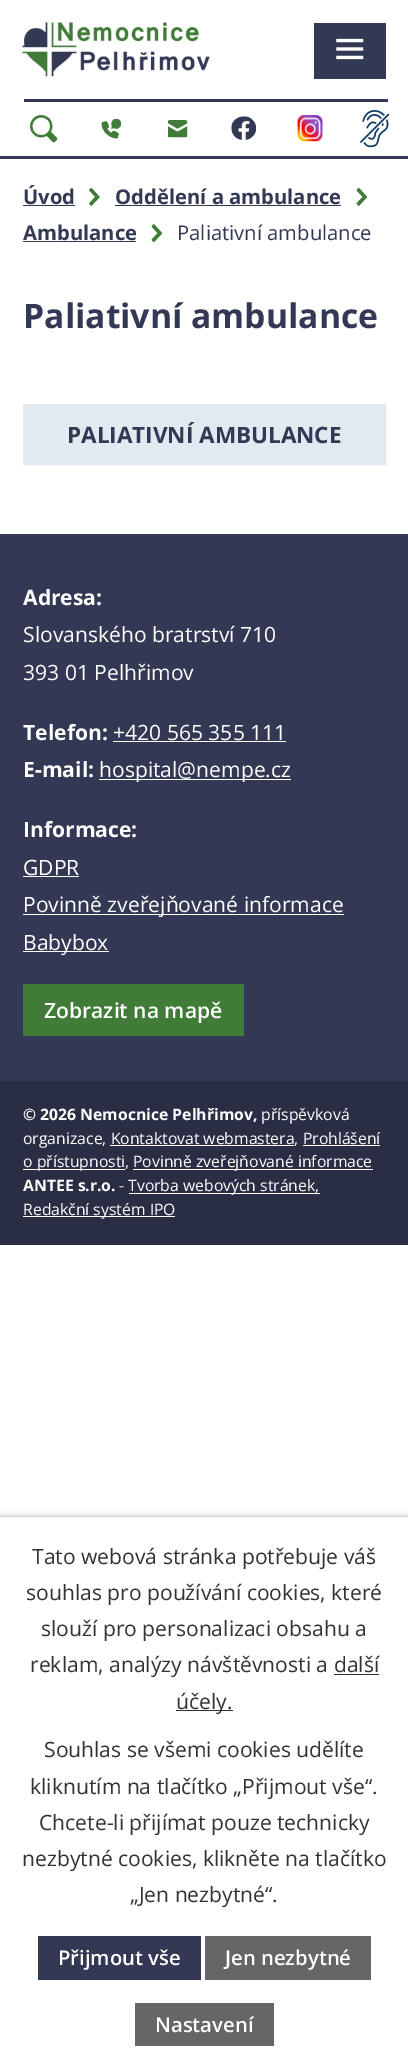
%!PS
<< /PageSize [408 2064] /PageUsesTransparency true >> setpagedevice
/rgb { dup -16 bitshift 255 div exch dup -8 bitshift 255 and 255 div exch 255 and 255 div setrgbcolor } def
/font { [ exch dup neg 0 0 3 -1 roll 0 0 ] selectfont } def
/text { moveto show } def
/alpha { dup .setfillconstantalpha .setstrokeconstantalpha } def
/roundrect { 5 dict begin { /r /h /w /y /x } { exch def } forall
  x r add y moveto x w add y 2 copy h add r arct x w add y h add x 1 index r arct
  x y h add x y r arct x y 2 copy exch w add exch r arct closepath end } def
/shadow { 12 dict begin { /a /b /q /h /w /y /x } { exch def } forall gsave /was 0 def
  9 -2 -9 { dup b mul 4 div /e exch def 1 sub .425 mul 2.718 exch exp 1 add a .99 .min exch div /now exch def
    1 1 now sub 1 was sub div sub alpha /was now def
    w h .min e 2 mul add 0 gt { x e sub y e sub w e 2 mul add h e 2 mul add
      q e add b .6 mul add w h .min 2 div e add .min 0 .max roundrect fill } if } for grestore end } def
/picture { 5 dict begin { /h /w /y /x /name } { exch def } forall
  gsave x y translate w h scale
  w h 8 [w 0 0 h 0 0] name (r) file false 3 colorimage grestore end } def
0 .pushpdf14devicefilter
0 2064 translate 1 -1 scale
4 setmiterlimit
/s1 { /OpenSans-Bold 20.25 font 16#333854 rgb } def
/s2 { /OpenSans-Regular 20.25 font 16#333854 rgb } def
/s3 { /OpenSans-Bold 33.75 font 16#333854 rgb } def
/s4 { /OpenSans-Bold 22.5 font 16#333854 rgb } def
/s5 { /OpenSans-Bold 21.1 font 16#FFFFFF rgb } def
/s6 { /OpenSans-Regular 21.1 font 16#FFFFFF rgb } def
/s7 { /OpenSans-SemiBold 21.1 font 16#FFFFFF rgb } def
/s8 { /OpenSans-Bold 15.75 font 16#FFFFFF rgb } def
/s9 { /OpenSans-Regular 15.75 font 16#FFFFFF rgb } def
/s10 { /OpenSans-Regular 21.1 font 16#333333 rgb } def
/s11 { /OpenSans-SemiBold 20.25 font 16#FFFFFF rgb } def
16#FFFFFF rgb
0 0 408 2064 rectfill
16#333854 rgb
0 156 408 3 rectfill
(pic1.raw) 22 22 188 55 picture
24 99 364 3 rectfill
(pic2.raw) 30 115 28 28 picture
(pic3.raw) 101 119 20 20 picture
(pic4.raw) 168 120 20 18 picture
(pic5.raw) 231 116 25 24 picture
(pic6.raw) 297 115 26 27 picture
(pic7.raw) 360 110 30 38 picture
314 23 72 56 rectfill
(pic8.raw) 336 38 28 22 picture
s1
(Úvod) 23 204 text
23 205 52 1 rectfill
(pic9.raw) 89 188 11 18 picture
(Oddělení a ambulance) 115 204 text
115 205 226 1 rectfill
(pic10.raw) 356 188 12 18 picture
(Ambulance) 23 240 text
23 241 113 1 rectfill
(pic11.raw) 151 224 12 19 picture
s2
(Paliativní ambulance) 177 240 text
s3
(Paliativní ambulance) 23 328 text
16#E2E9F1 rgb
23.5 404.5 362 60 rectstroke
24 405 361 59 rectfill
s4
(PALIATIVNÍ AMBULANCE) 67 443 text
0 534 408 547 rectfill
s5
(Adresa:) 23 605 text
s6
(Slovanského bratrství 710) 23 642 text
(393 01 Pelhřimov) 23 680 text
s5
(Telefon:) 23 740 text
s6
(+420 565 355 111) 113 740 text
113 741 173 1 rectfill
s5
(E-mail:) 23 777 text
99 779 192 1 rectfill
s6
(hospital@nempe.cz) 99 777 text
s5
(Informace:) 23 837 text
s6
(GDPR) 23 875 text
23 876 56 1 rectfill
23 914 321 1 rectfill
(Povinně zveřejňované informace) 23 912 text
23 951 86 1 rectfill
(Babybox) 23 950 text
16#407C38 rgb
23 984 221 52 rectfill
s7
(Zobrazit na mapě) 44 1018 text
16#2A2E44 rgb
0 1081 408 164 rectfill
s8
(© 2026 Nemocnice Pelhřimov,) 23 1120 text
s9
(příspěvková) 261 1120 text
(organizace, Kontaktovat webmastera, Prohlášení) 23 1144 text
110 1145 184 1 rectfill
23 1169 102 1 rectfill
(o přístupnosti,) 23 1167 text
133 1169 240 1 rectfill
(Povinně zveřejňované informace) 133 1167 text
303 1145 77 1 rectfill
s8
(ANTEE s.r.o.) 23 1191 text
s9
(-) 119 1191 text
129 1193 191 1 rectfill
(Tvorba webových stránek,) 128 1191 text
23 1216 152 1 rectfill
(Redakční systém IPO) 23 1215 text
16#000000 rgb
0 1516 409 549 0 3 0.2 shadow
16#FFFFFF rgb
0 1517 408 547 rectfill
16#CCCCCC rgb
0 1516 408 1 rectfill
s10
(Tato webová stránka potřebuje váš) 32 1564 text
(souhlas pro používání cookies, které) 26 1600 text
(slouží pro personalizaci obsahu a) 41 1636 text
(reklam, analýzy návštěvnosti a další) 30 1672 text
176 1710 57 1 rectfill
(účely.) 176 1709 text
334 1674 45 1 rectfill
(Souhlas se všemi cookies udělíte) 44 1757 text
(kliknutím na tlačítko „Přijmout vše“.) 30 1794 text
(Chcete-li přijímat pouze technicky) 39 1830 text
(nezbytné cookies, klikněte na tlačítko) 22 1866 text
(„Jen nezbytné“.) 130 1902 text
16#333854 rgb
38 1936 163 44 rectfill
s11
(Přijmout vše) 58 1965 text
16#666666 rgb
205 1936 166 44 rectfill
s11
(Jen nezbytné) 225 1965 text
16#666666 rgb
135 2003 139 43 rectfill
s11
(Nastavení) 155 2032 text
.poppdf14devicefilter showpage
